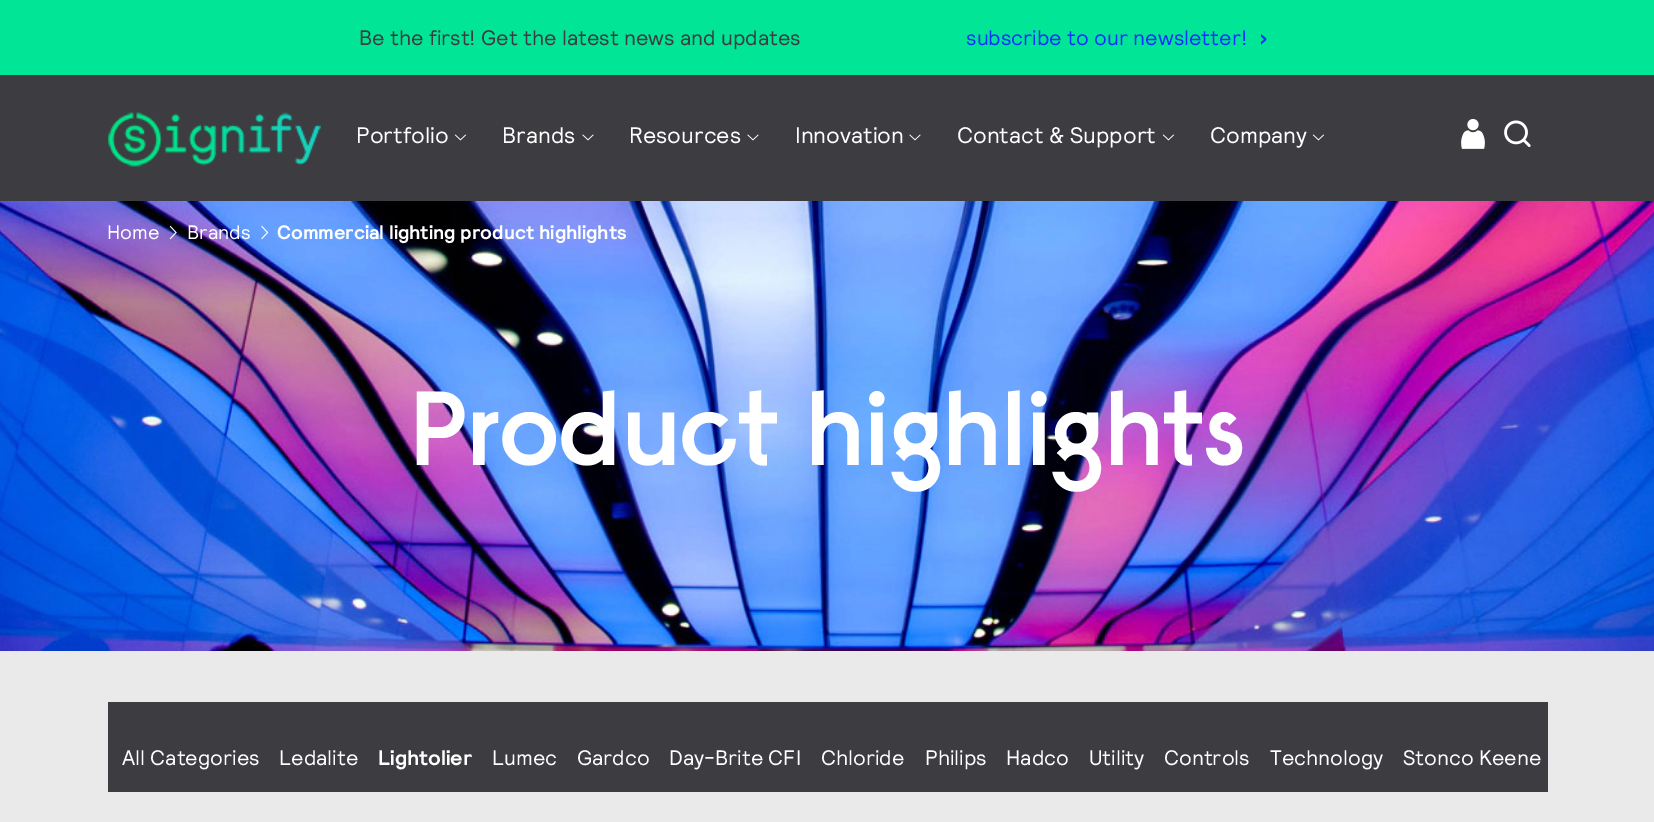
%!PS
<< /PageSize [1654 822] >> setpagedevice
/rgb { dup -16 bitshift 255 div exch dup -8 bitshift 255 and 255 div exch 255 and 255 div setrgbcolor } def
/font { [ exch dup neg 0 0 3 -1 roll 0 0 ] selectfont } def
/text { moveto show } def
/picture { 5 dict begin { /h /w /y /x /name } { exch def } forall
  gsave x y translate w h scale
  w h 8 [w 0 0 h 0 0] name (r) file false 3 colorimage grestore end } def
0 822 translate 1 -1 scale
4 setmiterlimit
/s1 { /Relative-Regular 21 font 16#3C3C41 rgb } def
/s2 { /Relative-Regular 21 font 16#1432FF rgb } def
/s3 { /Relative-Bold 21 font 16#1432FF rgb } def
/s4 { /Relative-Regular 22.5 font 16#FFFFFF rgb } def
/s5 { /Relative-Regular 19.5 font 16#FFFFFF rgb } def
/s6 { /Relative-Bold 19.5 font 16#FFFFFF rgb } def
/s7 { /Relative-Regular 21 font 16#FFFFFF rgb } def
/s8 { /Relative-Bold 21 font 16#FFFFFF rgb } def
16#3C3C41 rgb
0 0 1654 822 rectfill
16#00E696 rgb
0 0 1654 75 rectfill
s1
(Be the first! Get the latest news and updates) 359 45 text
s2
(subscribe to our newsletter!) 966 45 text
s3
(›) 1260 45 text
(pic1.raw) 108 112 213 55 picture
s4
(Portfolio) 356 143 text
(pic2.raw) 454 134 13 7 picture
(Brands) 502 143 text
(pic3.raw) 582 134 12 7 picture
(Resources) 629 143 text
(pic3.raw) 747 134 12 7 picture
(Innovation) 795 143 text
(pic3.raw) 909 134 12 7 picture
(Contact & Support) 957 143 text
(pic2.raw) 1162 134 13 7 picture
(Company) 1210 143 text
(pic2.raw) 1312 134 13 7 picture
(pic4.raw) 1461 119 24 30 picture
(pic5.raw) 1504 120 27 27 picture
(pic8.raw) 0 201 1654 450 picture
s5
(Home) 107 239 text
(pic6.raw) 169 225 8 15 picture
(Brands) 187 239 text
(pic7.raw) 261 225 8 15 picture
s6
(Commercial lighting product highlights) 277 239 text
/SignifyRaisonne-SemiBold 105 font
408 465 moveto -3 0 (Product highlights) ashow
16#EAEAEA rgb
0 651 1654 171 rectfill
16#3C3C41 rgb
108 702 1440 90 rectfill
s7
(All Categories) 122 765 text
(Ledalite) 279 765 text
s8
(Lightolier) 378 765 text
s7
(Lumec) 492 765 text
(Gardco) 577 765 text
(Day-Brite CFI) 669 765 text
(Chloride) 821 765 text
(Philips) 925 765 text
(Hadco) 1006 765 text
(Utility) 1089 765 text
(Controls) 1164 765 text
(Technology) 1270 765 text
(Stonco Keene) 1403 765 text
showpage
